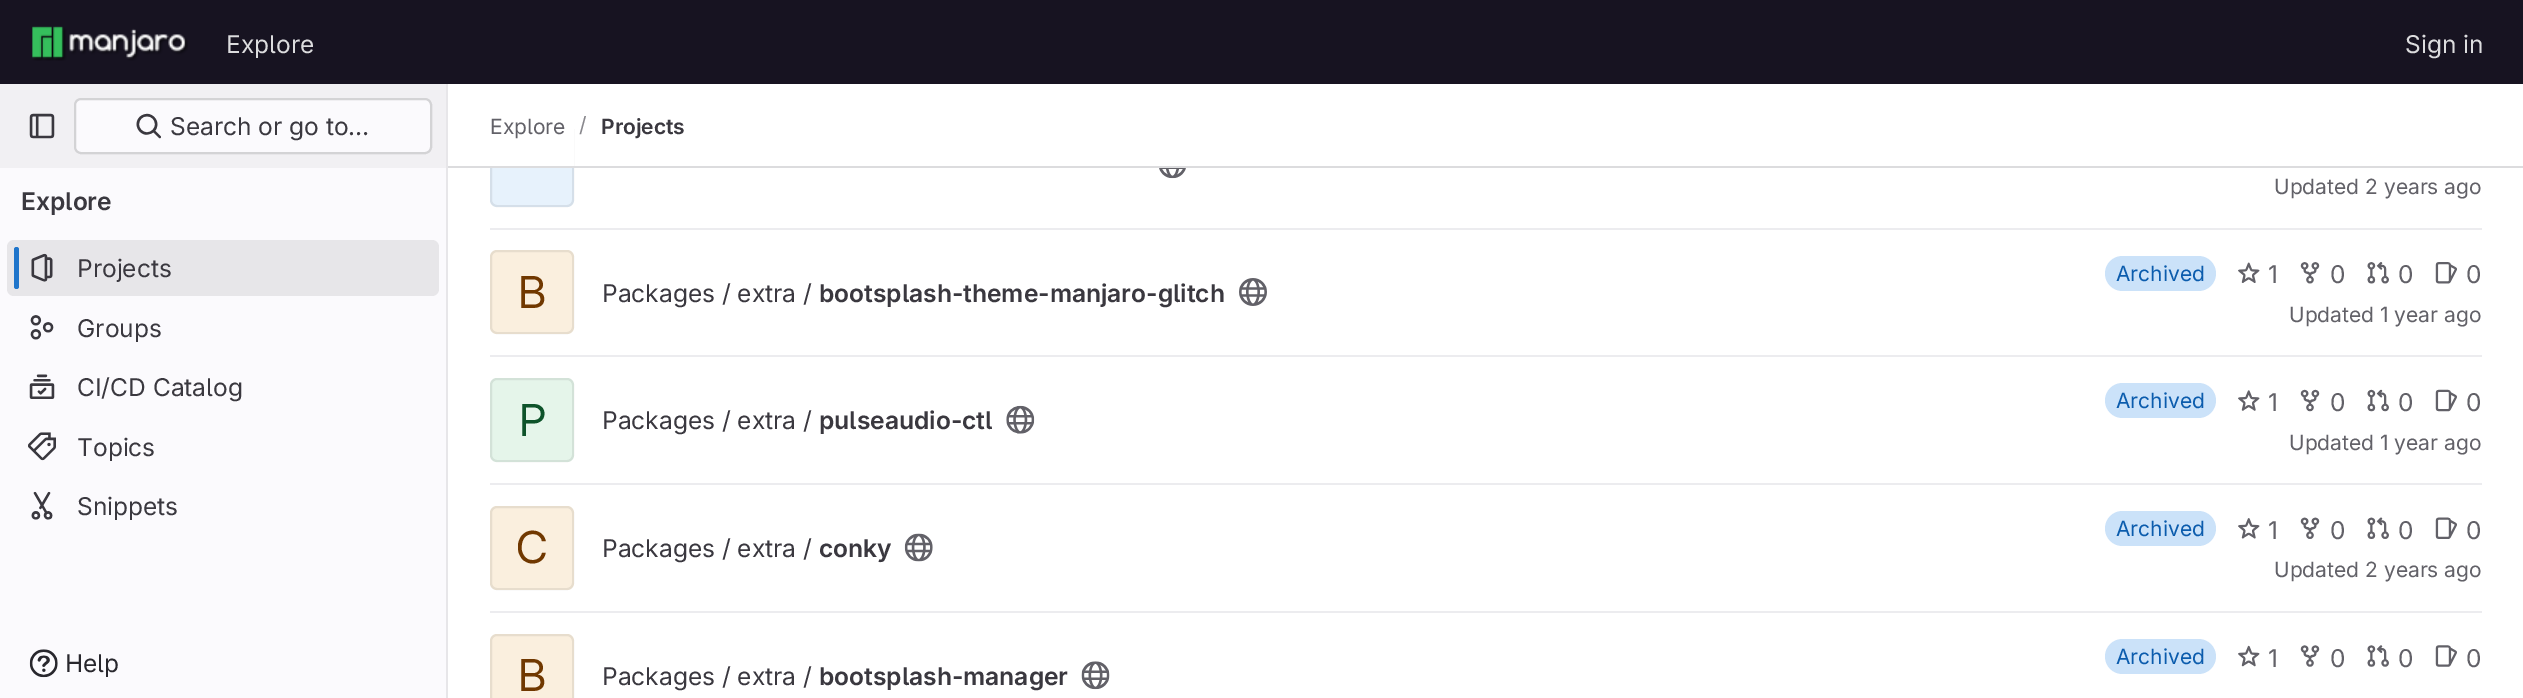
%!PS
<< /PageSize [2523 698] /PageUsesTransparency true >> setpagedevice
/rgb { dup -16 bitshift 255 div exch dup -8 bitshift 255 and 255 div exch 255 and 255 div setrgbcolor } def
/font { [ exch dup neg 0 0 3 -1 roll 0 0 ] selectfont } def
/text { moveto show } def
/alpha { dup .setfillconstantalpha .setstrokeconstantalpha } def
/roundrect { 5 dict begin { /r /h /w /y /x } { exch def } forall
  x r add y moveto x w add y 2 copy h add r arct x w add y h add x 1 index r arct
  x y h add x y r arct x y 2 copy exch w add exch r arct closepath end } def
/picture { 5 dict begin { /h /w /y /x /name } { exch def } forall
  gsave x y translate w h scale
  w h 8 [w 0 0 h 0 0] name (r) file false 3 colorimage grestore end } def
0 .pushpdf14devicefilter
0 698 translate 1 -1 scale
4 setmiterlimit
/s1 { /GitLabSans-Regular 24.5 font 16#DCDCDE rgb } def
/s2 { /GitLabSans-Regular 24.5 font 16#3A383F rgb } def
/s3 { /GitLabSans-SemiBold 24.5 font 16#3A383F rgb } def
/s4 { /GitLabSans-Regular 24.5 font 16#28272D rgb } def
/s5 { /GitLabSans-Regular 21 font 16#626168 rgb } def
/s6 { /GitLabSans-Regular 21 font 16#89888D rgb } def
/s7 { /GitLabSans-SemiBold 21 font 16#3A383F rgb } def
/s8 { /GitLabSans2-Regular 44 font 16#703800 rgb } def
/s9 { /GitLabSans-Regular 21 font 16#0B5CAD rgb } def
/s10 { /GitLabSans-Regular 24.5 font 16#626168 rgb } def
/s11 { /GitLabSans2-Regular 44 font 16#0D532A rgb } def
16#FFFFFF rgb
0 0 2523 698 rectfill
16#171321 rgb
0 0 2523 84 rectfill
(pic1.raw) 32 26 156 35 picture
s1
(Explore) 226 53 text
(Sign in) 2405 53 text
16#FBFAFD rgb
0 168 446 530 rectfill
16#E7E6E9 rgb
446 84 2 614 rectfill
16#F1F0F3 rgb
0 84 446 84 rectfill
(pic2.raw) 29 113 26 26 picture
16#FBFAFD rgb
74 98 358 56 7 roundrect fill
0.16 alpha
16#050506 rgb
2 setlinewidth
75 99 356 54 6 roundrect stroke
1 alpha
(pic3.raw) 136 113 25 26 picture
s2
(Search or go to…) 170 135 text
s3
(Explore) 21 210 text
16#E7E6E9 rgb
7 240 432 56 7 roundrect fill
16#1F75CB rgb
14 247 5 42 2.5 roundrect fill
(pic4.raw) 31 253 22 29 picture
s2
(Projects) 77 277 text
(pic5.raw) 30 315 24 25 picture
(Groups) 77 337 text
(pic6.raw) 29 374 26 25 picture
(CI/CD Catalog) 77 396 text
(pic7.raw) 28 432 28 29 picture
(Topics) 77 456 text
(pic8.raw) 31 491 22 29 picture
(Snippets) 77 515 text
(pic9.raw) 29 649 29 29 picture
s4
(Help) 65 672 text
16#E7F2FC rgb
490 123 84 84 7 roundrect fill
0.08 alpha
16#050506 rgb
491 124 82 82 6 roundrect stroke
1 alpha
16#FFFFFF rgb
490 123 84 43 rectfill
16#DCDCDE rgb
448 166 2075 2 rectfill
s5
(Explore) 490 134 text
s6
(/) 579 132 text
s7
(Projects) 601 134 text
16#ECECEF rgb
490 228 1992 2 rectfill
(pic10.raw) 1159 168 27 11 picture
s5
(Updated 2 years ago) 2274 194 text
16#ECECEF rgb
490 355 1992 2 rectfill
16#FAEFDE rgb
490 250 84 84 7 roundrect fill
0.08 alpha
16#050506 rgb
491 251 82 82 6 roundrect stroke
1 alpha
s8
(B) 518 308 text
s2
(Packages / extra /) 602 302 text
s3
(bootsplash-theme-manjaro-glitch) 819 302 text
(pic11.raw) 1239 278 28 28 picture
16#CBE2F9 rgb
2105 256 111 35 17.5 roundrect fill
s9
(Archived) 2116 281 text
(pic12.raw) 2238 262 22 21 picture
s10
(1) 2268 283 text
(pic13.raw) 2300 262 20 22 picture
(0) 2330 283 text
(pic14.raw) 2367 262 22 22 picture
(0) 2398 283 text
(pic15.raw) 2435 262 22 22 picture
(0) 2466 283 text
s5
(Updated 1 year ago) 2289 322 text
16#ECECEF rgb
490 483 1992 2 rectfill
16#E5F5EA rgb
490 378 84 84 7 roundrect fill
0.08 alpha
16#050506 rgb
491 379 82 82 6 roundrect stroke
1 alpha
s11
(P) 519 436 text
s2
(Packages / extra /) 602 429 text
s3
(pulseaudio-ctl) 819 429 text
(pic16.raw) 1006 405 29 29 picture
16#CBE2F9 rgb
2105 383 111 35 17.5 roundrect fill
s9
(Archived) 2116 408 text
(pic17.raw) 2238 390 22 21 picture
s10
(1) 2268 411 text
(pic18.raw) 2300 389 20 23 picture
(0) 2330 411 text
(pic19.raw) 2367 389 22 23 picture
(0) 2398 411 text
(pic20.raw) 2435 389 22 23 picture
(0) 2466 411 text
s5
(Updated 1 year ago) 2289 450 text
16#ECECEF rgb
490 611 1992 2 rectfill
16#FAEFDE rgb
490 506 84 84 7 roundrect fill
0.08 alpha
16#050506 rgb
491 507 82 82 6 roundrect stroke
1 alpha
s8
(C) 516 563 text
s2
(Packages / extra /) 602 557 text
s3
(conky) 819 557 text
(pic21.raw) 904 533 29 29 picture
16#CBE2F9 rgb
2105 511 111 35 17.5 roundrect fill
s9
(Archived) 2116 536 text
(pic22.raw) 2238 518 22 21 picture
s10
(1) 2268 539 text
(pic23.raw) 2300 517 20 22 picture
(0) 2330 539 text
(pic24.raw) 2367 517 22 22 picture
(0) 2398 539 text
(pic25.raw) 2435 517 22 22 picture
(0) 2466 539 text
s5
(Updated 2 years ago) 2274 577 text
16#FAEFDE rgb
490 634 84 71 7 roundrect fill
0.08 alpha
16#050506 rgb
491 635 82 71 6 roundrect stroke
1 alpha
s8
(B) 518 691 text
s2
(Packages / extra /) 602 685 text
s3
(bootsplash-manager) 819 685 text
(pic26.raw) 1081 661 29 29 picture
16#CBE2F9 rgb
2105 639 111 35 17.5 roundrect fill
s9
(Archived) 2116 664 text
(pic27.raw) 2238 645 22 22 picture
s10
(1) 2268 667 text
(pic28.raw) 2300 645 20 22 picture
(0) 2330 667 text
(pic29.raw) 2367 645 22 22 picture
(0) 2398 667 text
(pic30.raw) 2435 645 22 22 picture
(0) 2466 667 text
.poppdf14devicefilter showpage
